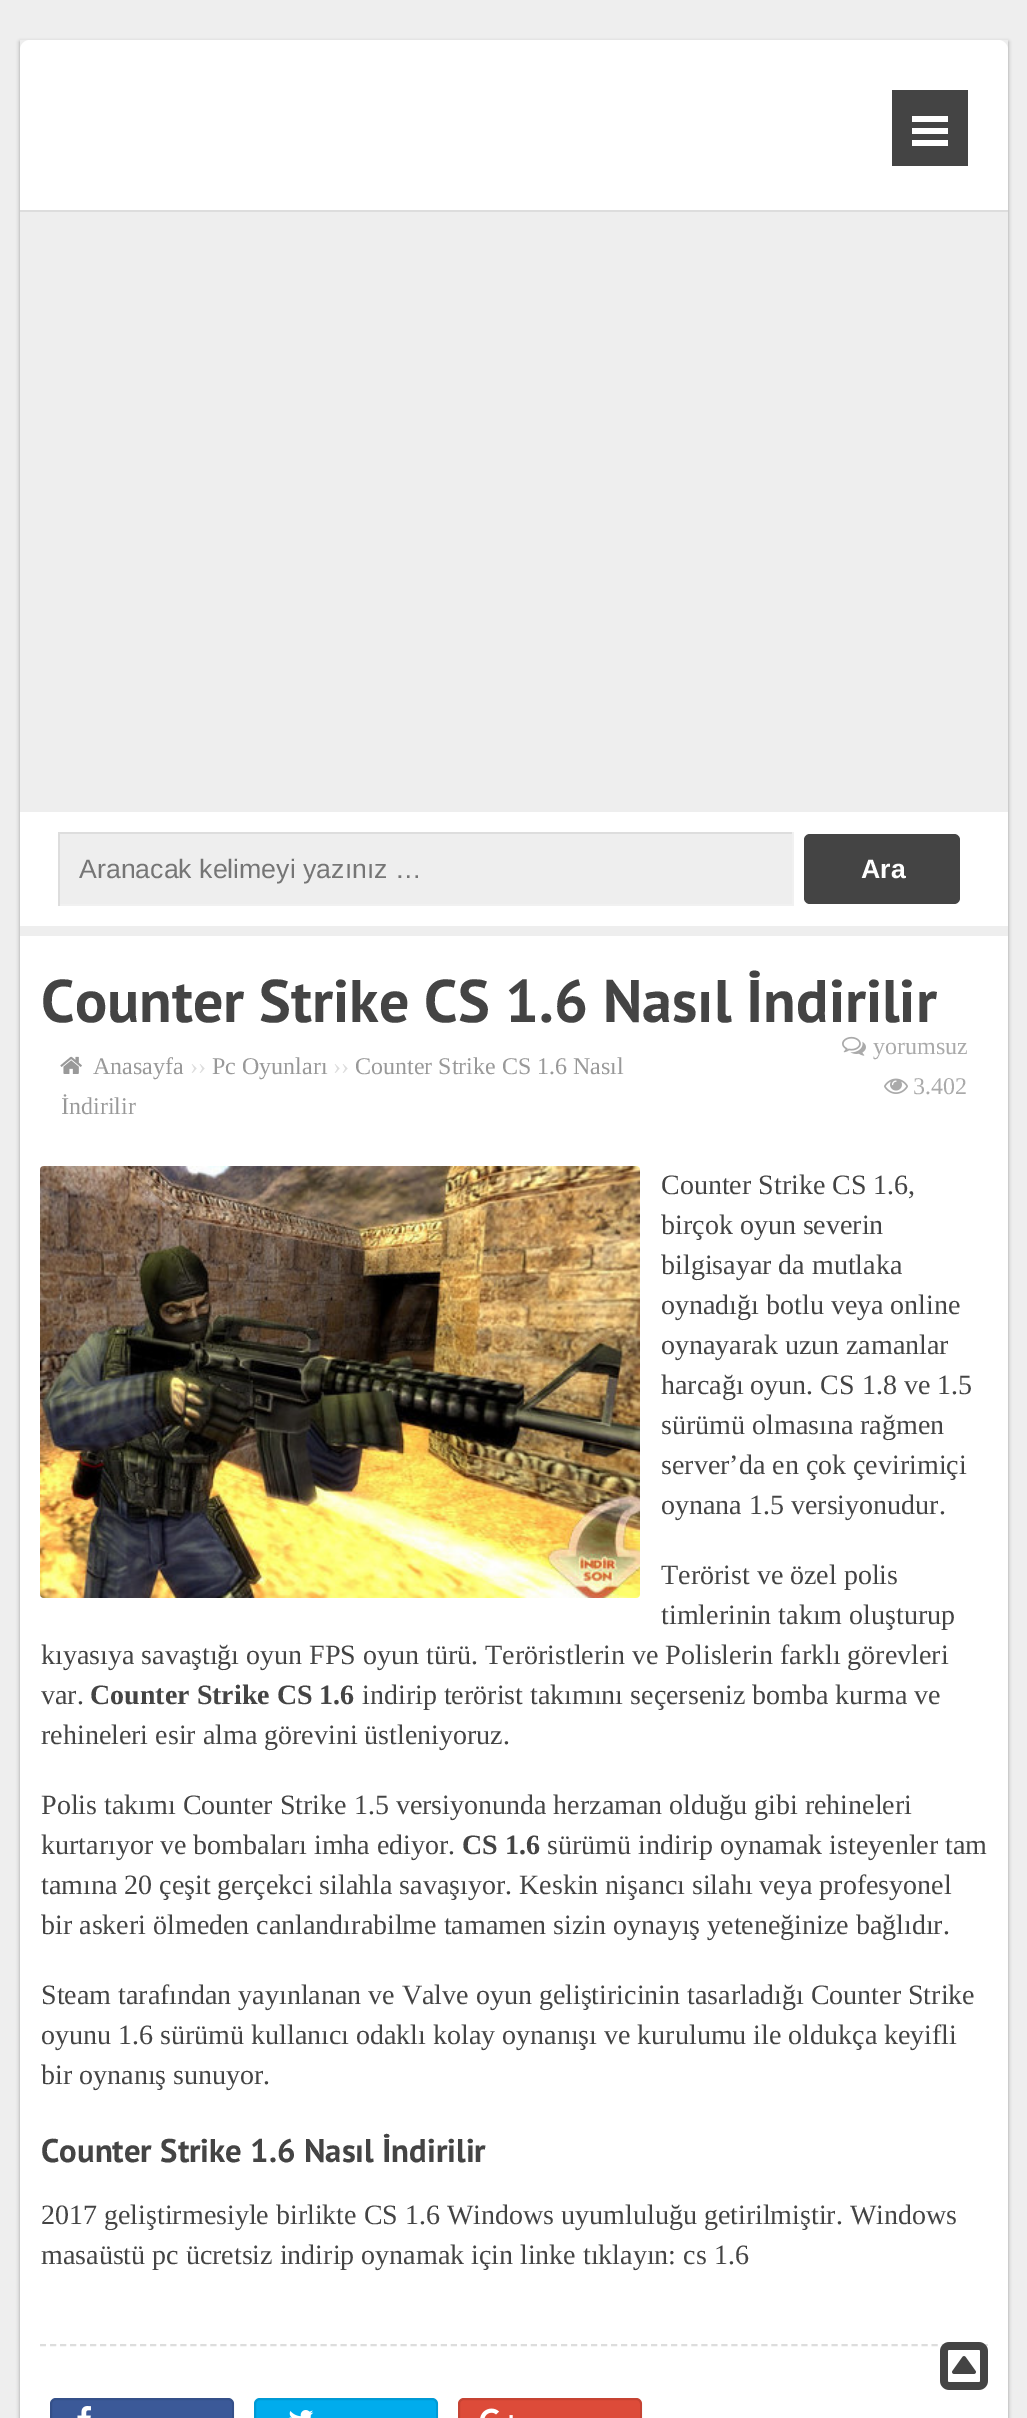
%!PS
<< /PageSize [1027 2418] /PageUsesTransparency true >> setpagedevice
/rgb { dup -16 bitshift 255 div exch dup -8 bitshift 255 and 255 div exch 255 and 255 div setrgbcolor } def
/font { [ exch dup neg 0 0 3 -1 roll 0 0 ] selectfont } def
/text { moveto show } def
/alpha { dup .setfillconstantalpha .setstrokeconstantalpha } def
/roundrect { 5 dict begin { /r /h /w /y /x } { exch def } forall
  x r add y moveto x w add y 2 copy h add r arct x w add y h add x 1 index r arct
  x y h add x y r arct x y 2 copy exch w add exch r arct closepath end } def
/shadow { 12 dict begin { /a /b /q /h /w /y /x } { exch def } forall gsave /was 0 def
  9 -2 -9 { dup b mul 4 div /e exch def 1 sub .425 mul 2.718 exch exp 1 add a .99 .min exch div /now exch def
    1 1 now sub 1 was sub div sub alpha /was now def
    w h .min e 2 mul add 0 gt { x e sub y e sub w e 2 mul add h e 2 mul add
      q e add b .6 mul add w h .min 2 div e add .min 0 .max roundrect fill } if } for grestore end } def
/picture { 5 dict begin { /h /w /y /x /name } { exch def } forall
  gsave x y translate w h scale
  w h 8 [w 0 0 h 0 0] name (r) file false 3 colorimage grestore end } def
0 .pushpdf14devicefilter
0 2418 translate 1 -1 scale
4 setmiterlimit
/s1 { /LiberationSans-Regular 26.7 font 16#757575 rgb } def
/s2 { /LiberationSans-Bold 26.7 font 16#FFFFFF rgb } def
/s3 { /PTSans-Bold 60 font 16#444444 rgb } def
/s4 { /LiberationSerif-Regular 24 font 16#999999 rgb } def
/s5 { /LiberationSerif-Regular 24 font 16#DDDDDD rgb } def
/s6 { /LiberationSerif-Regular 24 font 16#AAAAAA rgb } def
/s7 { /LiberationSerif-Regular 28 font 16#444444 rgb } def
/s8 { /LiberationSerif-Bold 28 font 16#444444 rgb } def
/s9 { /PTSans-Bold 32.75 font 16#444444 rgb } def
16#EEEEEE rgb
0 0 1027 2418 rectfill
gsave
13 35 moveto 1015 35 lineto 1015 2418 lineto 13 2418 lineto closepath 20 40 moveto 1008 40 lineto 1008 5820 lineto 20 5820 lineto closepath eoclip newpath
16#999999 rgb
20 42 988 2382 0 2 1 shadow
grestore
16#FFFFFF rgb
30 40 moveto 998 40 lineto 1003.5 40 1008 44.5 1008 50 curveto 1008 212 lineto 20 212 lineto 20 50 lineto 20 44.5 24.5 40 30 40 curveto closepath fill
16#DDDDDD rgb
20 210 988 2 rectfill
16#444444 rgb
892 90 76 76 rectfill
16#FFFFFF rgb
912 116 36 6 rectfill
912 128 36 6 rectfill
912 140 36 6 rectfill
20 812 988 114 rectfill
16#EEEEEE rgb
60 834 732 70 rectfill
16#DDDDDD rgb
58 832 736 2 rectfill
16#F1F1F1 rgb
792 832 2 74 rectfill
58 904 736 2 rectfill
16#DDDDDD rgb
58 832 2 74 rectfill
s1
(Aranacak kelimeyi yazınız …) 79 878 text
16#444444 rgb
804 834 156 70 6 roundrect fill
s2
(Ara) 861 878 text
20 936 988 1482 rectfill
s3
(Counter Strike CS 1.6 Nasıl İndirilir) 41 1022 text
(pic1.raw) 60 1056 22 18 picture
s4
(Anasayfa) 93 1074 text
s5
(››) 190 1074 text
s4
(Pc Oyunları) 212 1074 text
s5
(››) 333 1074 text
s4
(Counter Strike CS 1.6 Nasıl) 355 1074 text
(İndirilir) 61 1114 text
(pic2.raw) 842 1036 24 20 picture
s6
(yorumsuz) 873 1054 text
(pic3.raw) 884 1078 24 16 picture
(3.402) 913 1094 text
(pic4.raw) 40 1166 600 432 picture
s7
(Counter Strike CS 1.6,) 661 1194 text
(birçok oyun severin) 661 1234 text
(bilgisayar da mutlaka) 661 1274 text
(oynadığı botlu veya online) 661 1314 text
(oynayarak uzun zamanlar) 661 1354 text
(harcağı oyun. CS 1.8 ve 1.5) 661 1394 text
(sürümü olmasına rağmen) 661 1434 text
(server’da en çok çevirimiçi) 661 1474 text
(oynana 1.5 versiyonudur.) 661 1514 text
(Terörist ve özel polis) 661 1584 text
(timlerinin takım oluşturup) 661 1624 text
(kıyasıya savaştığı oyun FPS oyun türü. Teröristlerin ve Polislerin farklı görevleri) 41 1664 text
(var.) 41 1704 text
s8
(Counter Strike CS 1.6) 90 1704 text
s7
(indirip terörist takımını seçerseniz bomba kurma ve) 362 1704 text
(rehineleri esir alma görevini üstleniyoruz.) 41 1744 text
(Polis takımı Counter Strike 1.5 versiyonunda herzaman olduğu gibi rehineleri) 41 1814 text
(kurtarıyor ve bombaları imha ediyor.) 41 1854 text
s8
(CS 1.6) 462 1854 text
s7
(sürümü indirip oynamak isteyenler tam) 547 1854 text
(tamına 20 çeşit gerçekci silahla savaşıyor. Keskin nişancı silahı veya profesyonel) 41 1894 text
(bir askeri ölmeden canlandırabilme tamamen sizin oynayış yeteneğinize bağlıdır.) 41 1934 text
(Steam tarafından yayınlanan ve Valve oyun geliştiricinin tasarladığı Counter Strike) 41 2004 text
(oyunu 1.6 sürümü kullanıcı odaklı kolay oynanışı ve kurulumu ile oldukça keyifli) 41 2044 text
(bir oynanış sunuyor.) 41 2084 text
s9
(Counter Strike 1.6 Nasıl İndirilir) 41 2162 text
s7
(2017 geliştirmesiyle birlikte CS 1.6 Windows uyumluluğu getirilmiştir. Windows) 41 2224 text
(masaüstü pc ücretsiz indirip oynamak için linke tıklayın: cs 1.6) 41 2264 text
16#DDDDDD rgb
2 setlinewidth
[6 4.02] 0 setdash
40 2345 moveto 988 2345 lineto stroke
16#3B5998 rgb
50 2398 184 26 6 roundrect fill
0.1 alpha
16#000000 rgb
[] 0 setdash
51 2399 182 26 5 roundrect stroke
1 alpha
(pic5.raw) 77 2406 14 12 picture
16#00ACED rgb
254 2398 184 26 6 roundrect fill
0.1 alpha
16#000000 rgb
255 2399 182 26 5 roundrect stroke
1 alpha
(pic6.raw) 289 2410 25 8 picture
16#DD4B39 rgb
458 2398 184 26 6 roundrect fill
0.1 alpha
16#000000 rgb
459 2399 182 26 5 roundrect stroke
1 alpha
(pic7.raw) 480 2408 33 10 picture
(pic8.raw) 940 2342 48 48 picture
.poppdf14devicefilter showpage
